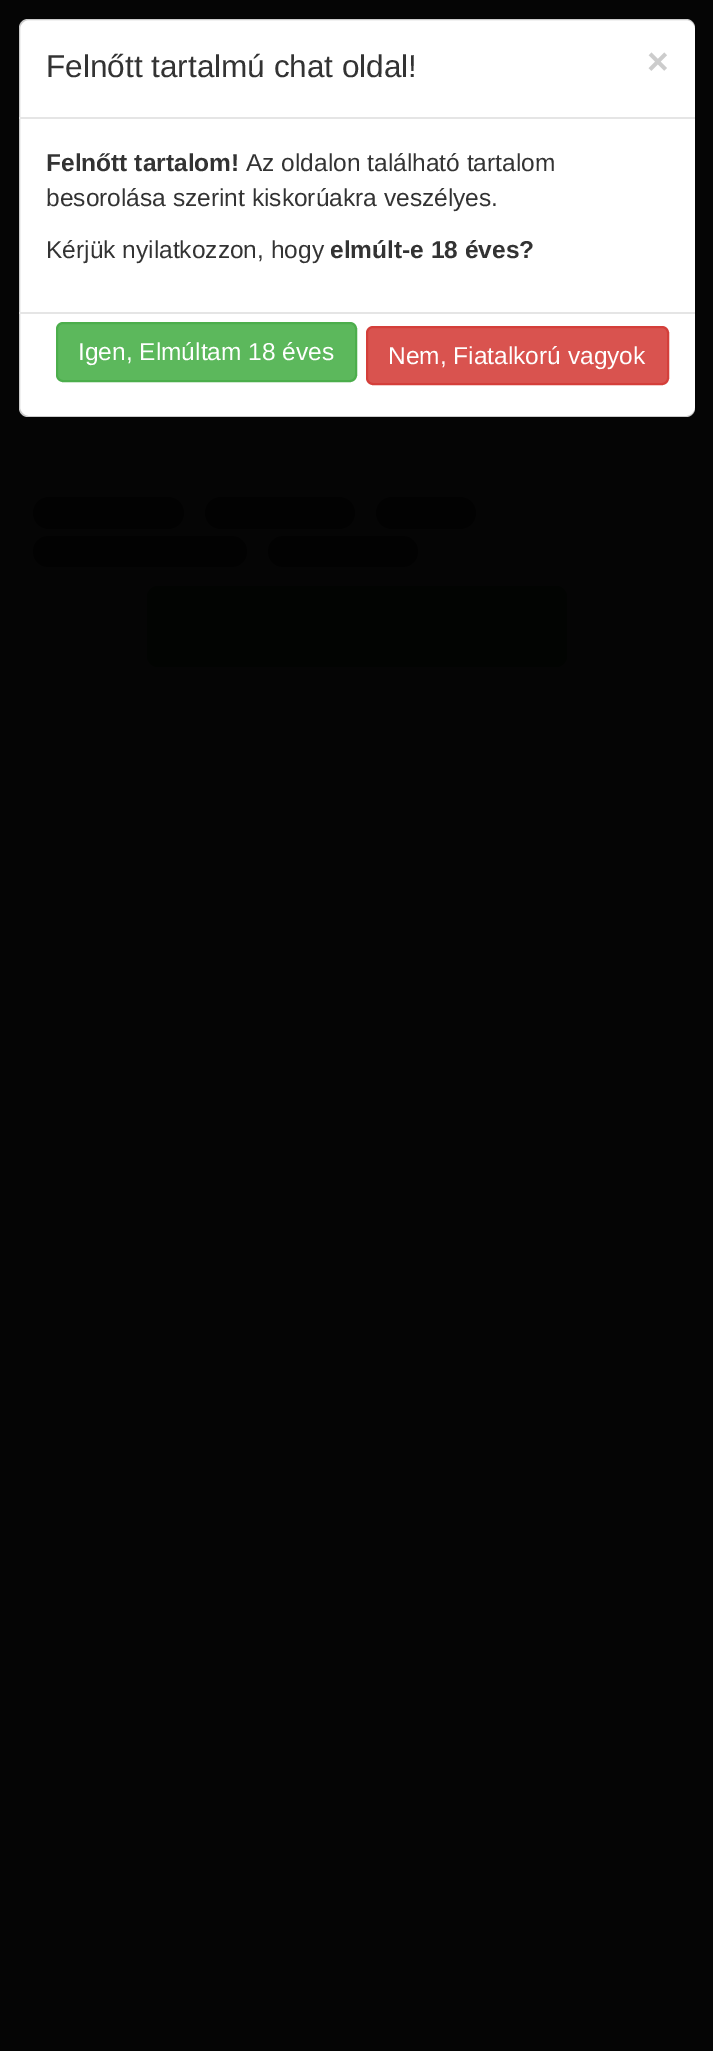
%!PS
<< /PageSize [713 2051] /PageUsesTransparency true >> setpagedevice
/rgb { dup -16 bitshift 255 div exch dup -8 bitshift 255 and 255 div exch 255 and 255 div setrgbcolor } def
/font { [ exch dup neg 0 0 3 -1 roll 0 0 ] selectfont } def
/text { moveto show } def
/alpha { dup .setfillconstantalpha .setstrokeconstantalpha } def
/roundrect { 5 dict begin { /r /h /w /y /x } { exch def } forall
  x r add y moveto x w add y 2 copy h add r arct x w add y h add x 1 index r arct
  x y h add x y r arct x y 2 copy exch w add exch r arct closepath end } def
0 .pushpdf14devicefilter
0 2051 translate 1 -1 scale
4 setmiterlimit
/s1 { /LiberationSans-Regular 31.5 font 16#333333 rgb } def
/s2 { /LiberationSans-Bold 37 font 16#CCCCCC rgb } def
/s3 { /LiberationSans-Bold 24.5 font 16#333333 rgb } def
/s4 { /LiberationSans-Regular 24.5 font 16#333333 rgb } def
/s5 { /LiberationSans-Regular 24.5 font 16#FFFFFF rgb } def
16#050505 rgb
0 0 713 2051 rectfill
16#FFFFFF rgb
19 19 676 398 9 roundrect fill
0.2 alpha
16#000000 rgb
2 setlinewidth
19 19 677 398 10 roundrect stroke
1 alpha
16#E5E5E5 rgb
19 117 676 2 rectfill
s1
(Felnőtt tartalmú chat oldal!) 46 77 text
s2
(×) 647 74 text
s3
(Felnőtt tartalom!) 46 171 text
s4
(Az oldalon található tartalom) 246 171 text
(besorolása szerint kiskorúakra veszélyes.) 46 206 text
(Kérjük nyilatkozzon, hogy) 46 258 text
s3
(elmúlt-e 18 éves?) 330 258 text
16#E5E5E5 rgb
19 312 676 2 rectfill
16#5CB85C rgb
57 323 299 58 6 roundrect gsave fill grestore
16#4CAE4C rgb
stroke
s5
(Igen, Elmúltam 18 éves) 78 360 text
16#D9534F rgb
367 327 301 57 6 roundrect gsave fill grestore
16#D43F3A rgb
stroke
s5
(Nem, Fiatalkorú vagyok) 388 364 text
16#020202 rgb
33 497 151 32 16 roundrect fill
205 497 150 32 16 roundrect fill
376 497 100 32 16 roundrect fill
33 536 214 31 15.5 roundrect fill
268 536 150 31 15.5 roundrect fill
16#020402 rgb
147 586 420 81 11 roundrect fill
.poppdf14devicefilter showpage
